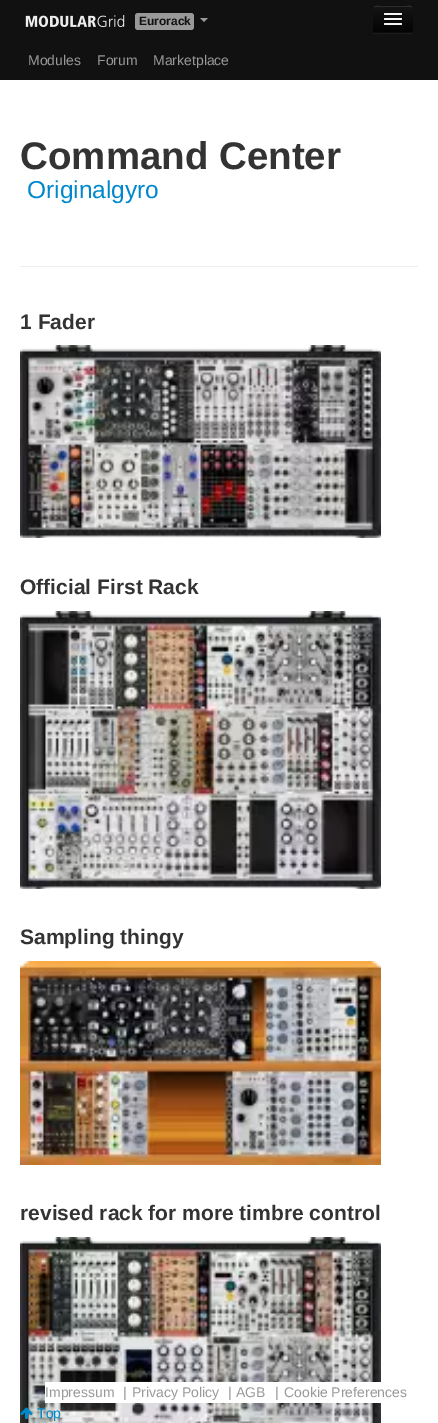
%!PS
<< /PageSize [438 1423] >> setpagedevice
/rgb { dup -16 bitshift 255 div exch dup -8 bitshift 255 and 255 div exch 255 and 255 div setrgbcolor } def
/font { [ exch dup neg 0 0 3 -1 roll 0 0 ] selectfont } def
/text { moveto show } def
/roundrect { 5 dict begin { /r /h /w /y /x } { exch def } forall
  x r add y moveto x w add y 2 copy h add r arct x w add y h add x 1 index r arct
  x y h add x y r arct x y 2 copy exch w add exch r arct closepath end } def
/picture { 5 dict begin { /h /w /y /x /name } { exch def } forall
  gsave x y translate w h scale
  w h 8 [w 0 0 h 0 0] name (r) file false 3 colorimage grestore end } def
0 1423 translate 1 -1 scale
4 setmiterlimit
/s1 { /LiberationSans-Bold 12 font 16#111111 rgb } def
/s2 { /LiberationSans-Regular 14 font 16#999999 rgb } def
/s3 { /LiberationSans-Bold 38.5 font 16#333333 rgb } def
/s4 { /LiberationSans-Regular 24.5 font 16#0088CC rgb } def
/s5 { /LiberationSans-Bold 21 font 16#333333 rgb } def
/s6 { /LiberationSans-Regular 14 font 16#0088CC rgb } def
16#FFFFFF rgb
0 0 438 1423 rectfill
16#111111 rgb
0 0 438 80 rectfill
(pic1.raw) 25 15 100 12 picture
16#999999 rgb
135 13 59 17 3 roundrect fill
s1
(Eurorack) 139 25 text
16#999999 rgb
200 18 moveto 208 18 lineto 204 22 lineto closepath fill
16#232323 rgb
373 31 moveto 373 35 377 34 381 34 curveto 405 34 lineto 409 34 413 35 413 31 curveto 413 32 412 33 411 33 curveto 375 33 lineto 374 33 373 32 373 31 curveto closepath fill
16#0E0E0E rgb
373 5 40 28 2 roundrect fill
gsave
373 5 40 28 2 roundrect clip newpath
gsave 373 6 moveto 413 6 lineto 413 32 lineto 373 32 lineto closepath clip newpath
<< /ShadingType 2 /ColorSpace /DeviceRGB /Coords [393 6 393 32] /Extend [true true] /Function << /FunctionType 2 /Domain [0 1] /C0 [0.082 0.082 0.082] /C1 [0.016 0.016 0.016] /N 1 >> >> shfill grestore
grestore
16#2C2C2C rgb
375 7 moveto 411.5 7 lineto 412 8 lineto 412 4.5 408 6 405 6 curveto 381 6 lineto 377.5 6 374 4.5 374 8 curveto closepath fill
16#0B0B0B rgb
412 32 moveto 411 32.5 lineto 375 32.5 lineto 374 32 lineto stroke
384 14.5 moveto 383 16.5 387.5 16 387.5 16 curveto 398.5 16 lineto 398.5 16 403 16.5 402 14.5 curveto 401 15.5 394.5 15 393 15 curveto 391.5 15 385 15.5 384 14.5 curveto closepath fill
16#F5F5F5 rgb
384 13 18 2 1 roundrect fill
16#090909 rgb
384 19.5 moveto 383 21.5 387.5 21 387.5 21 curveto 398.5 21 lineto 398.5 21 403 21.5 402 19.5 curveto 401 20.5 394.5 20 393 20 curveto 391.5 20 385 20.5 384 19.5 curveto closepath fill
16#F5F5F5 rgb
384 18 18 2 1 roundrect fill
384 23 18 2 1 roundrect fill
s2
(Modules) 28 65 text
(Forum) 97 65 text
(Marketplace) 153 65 text
16#EEEEEE rgb
20 266 398 1 rectfill
s3
(Command Center) 20 169 text
s4
(Originalgyro) 27 198 text
s5
(1 Fader) 20 329 text
(pic2.raw) 20 345 361 193 picture
(Official First Rack) 20 594 text
(pic3.raw) 20 611 361 278 picture
(Sampling thingy) 20 944 text
(pic4.raw) 20 961 361 204 picture
(revised rack for more timbre control) 20 1220 text
(pic5.raw) 20 1237 361 186 picture
16#FFFFFF rgb
45 1382 336 21 rectfill
s2
(Impressum) 45 1397 text
(|) 123 1397 text
(Privacy Policy) 132 1397 text
(|) 228 1397 text
(AGB) 236 1397 text
(|) 275 1397 text
(Cookie Preferences) 284 1397 text
(pic6.raw) 20 1407 13 12 picture
s6
(Top) 37 1418 text
showpage
